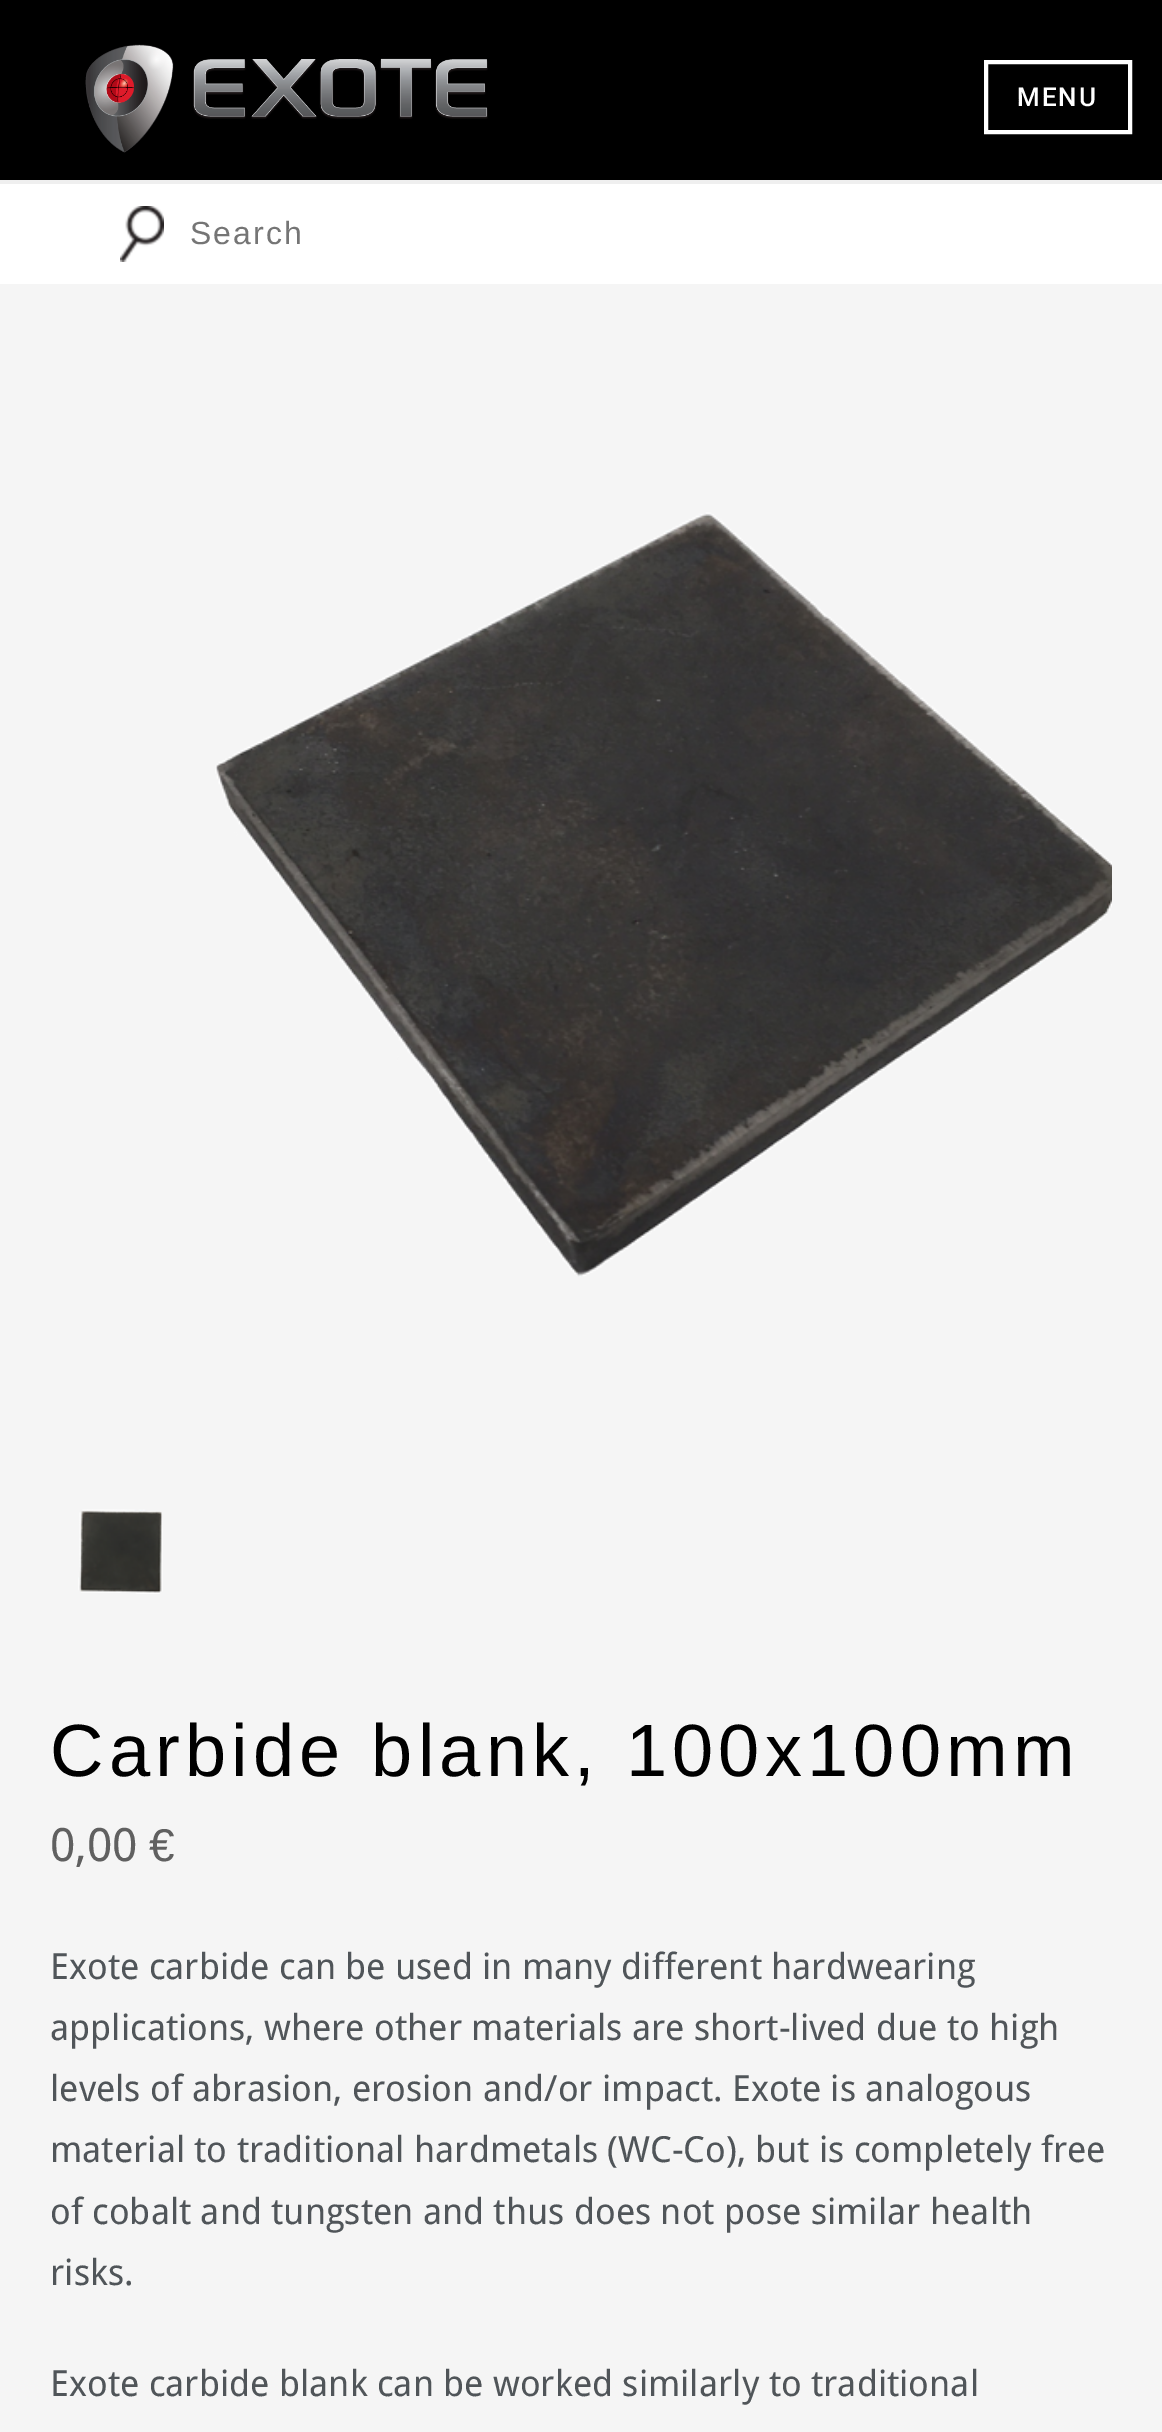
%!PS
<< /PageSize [1162 2432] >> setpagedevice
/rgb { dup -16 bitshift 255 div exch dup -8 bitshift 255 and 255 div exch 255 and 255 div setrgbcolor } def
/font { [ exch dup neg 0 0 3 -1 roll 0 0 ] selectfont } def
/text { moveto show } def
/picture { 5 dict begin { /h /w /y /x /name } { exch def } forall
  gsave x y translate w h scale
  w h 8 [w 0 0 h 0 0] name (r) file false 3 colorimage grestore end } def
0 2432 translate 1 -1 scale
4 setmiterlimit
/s1 { /DroidSans-Regular 46 font 16#606060 rgb } def
/s2 { /LiberationSans-Regular 46 font 16#606060 rgb } def
/s3 { /DroidSans-Regular 36 font 16#505559 rgb } def
16#000000 rgb
0 0 1162 2432 rectfill
(pic1.raw) 85 44 403 109 picture
16#FFFFFF rgb
4 setlinewidth
986 62 144 70 rectstroke
/Roboto-Medium 26 font
1017 106 moveto 2 0 (MENU) ashow
16#F5F5F5 rgb
0 284 1162 2148 rectfill
16#FFFFFF rgb
0 184 1162 100 rectfill
16#EFEFEF rgb
0 180 1162 4 rectfill
(pic2.raw) 120 206 44 56 picture
/LiberationSans-Regular 32 font
16#757575 rgb
190 244 moveto 2 0 (Search) ashow
(pic3.raw) 215 512 897 765 picture
(pic4.raw) 78 1509 85 85 picture
/LiberationSans-Regular 74 font
16#000000 rgb
50 1776 moveto 5.2 0 (Carbide blank, 100x100mm) ashow
s1
(0,00) 50 1861 text
s2
(€) 149 1861 text
s3
(Exote carbide can be used in many different hardwearing) 50 1979 text
(applications, where other materials are short-lived due to high) 50 2040 text
(levels of abrasion, erosion and/or impact. Exote is analogous) 50 2101 text
(material to traditional hardmetals \(WC-Co\), but is completely free) 50 2162 text
(of cobalt and tungsten and thus does not pose similar health) 50 2224 text
(risks.) 50 2285 text
(Exote carbide blank can be worked similarly to traditional) 50 2396 text
showpage
